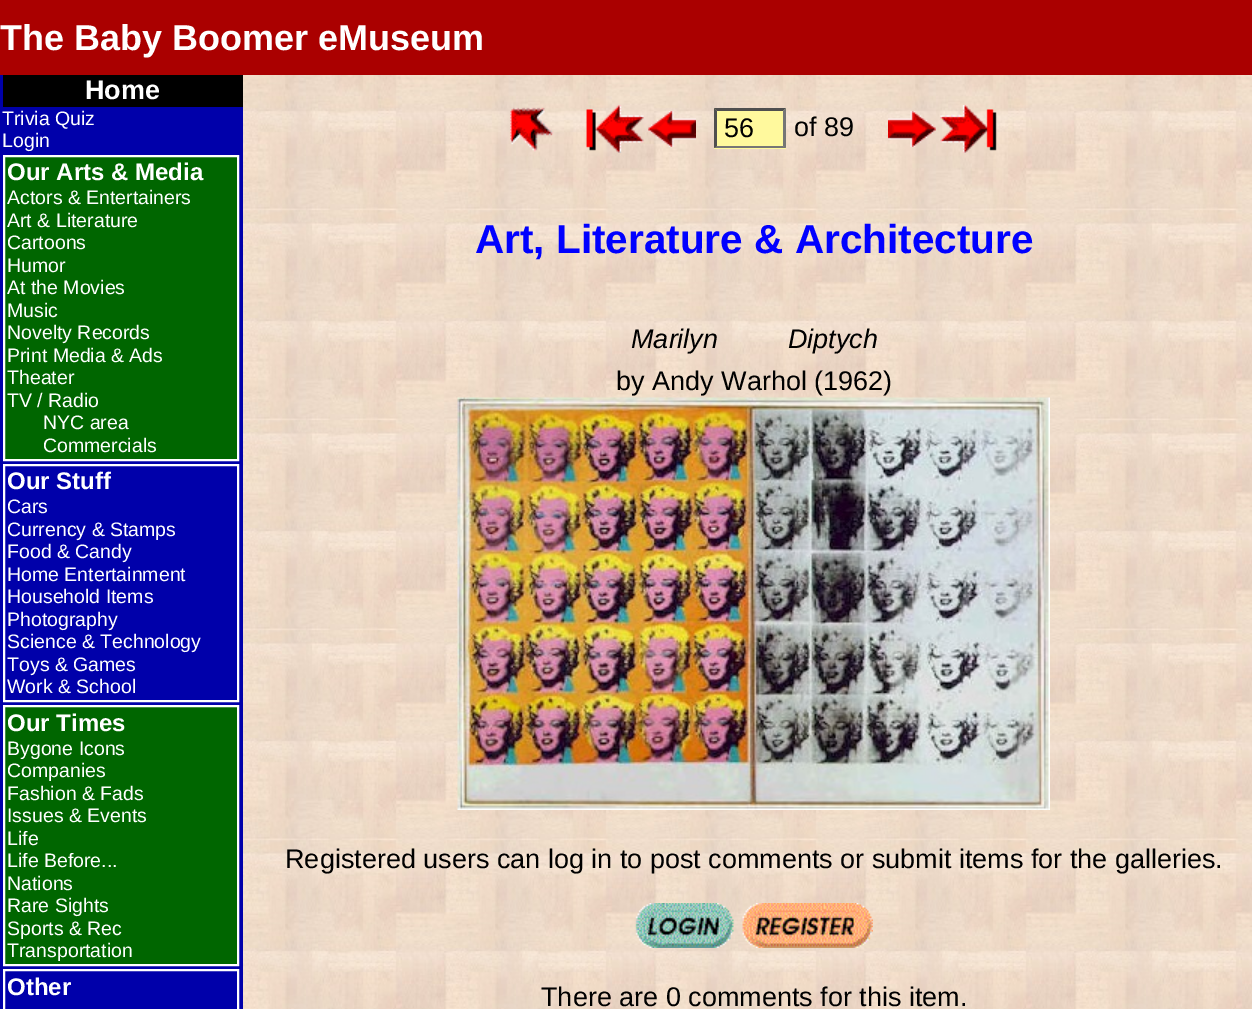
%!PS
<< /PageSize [1252 1009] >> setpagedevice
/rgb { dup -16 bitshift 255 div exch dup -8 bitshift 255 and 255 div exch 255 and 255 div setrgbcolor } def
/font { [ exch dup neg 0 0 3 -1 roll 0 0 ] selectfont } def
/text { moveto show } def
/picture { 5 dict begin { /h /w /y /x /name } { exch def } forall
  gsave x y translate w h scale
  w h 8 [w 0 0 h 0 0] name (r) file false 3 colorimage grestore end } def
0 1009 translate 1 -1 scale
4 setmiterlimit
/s1 { /LiberationSans-Bold 36 font 16#FFFFFF rgb } def
/s2 { /LiberationSans-Bold 27 font 16#FFFFFF rgb } def
/s3 { /LiberationSans-Regular 19.5 font 16#FFFFFF rgb } def
/s4 { /LiberationSans-Bold 24 font 16#FFFFFF rgb } def
/s5 { /LiberationSans-Regular 27 font 16#000000 rgb } def
/s6 { /LiberationSans-Bold 40.5 font 16#0000FF rgb } def
16#FFFFFF rgb
0 0 1252 1009 rectfill
(pic1.raw) 243 75 1009 934 picture
16#AA0000 rgb
0 0 1252 75 rectfill
s1
(The Baby Boomer eMuseum) 0 50 text
16#0000AA rgb
0 75 243 934 rectfill
16#000000 rgb
3 75 240 32 rectfill
s2
(Home) 85 99 text
s3
(Trivia Quiz) 2 125 text
(Login) 2 147 text
16#006600 rgb
4 156 moveto 238 156 lineto 238 460 lineto 4 460 lineto closepath gsave fill grestore
16#FFFFFF rgb
2 setlinewidth
stroke
s4
(Our Arts & Media) 7 180 text
s3
(Actors & Entertainers) 7 204 text
(Art & Literature) 7 227 text
(Cartoons) 7 249 text
(Humor) 7 272 text
(At the Movies) 7 294 text
(Music) 7 317 text
(Novelty Records) 7 339 text
(Print Media & Ads) 7 362 text
(Theater) 7 384 text
(TV / Radio) 7 407 text
(NYC area) 43 429 text
(Commercials) 43 452 text
4 465 234 236 rectstroke
s4
(Our Stuff) 7 489 text
s3
(Cars) 7 513 text
(Currency & Stamps) 7 536 text
(Food & Candy) 7 558 text
(Home Entertainment) 7 581 text
(Household Items) 7 603 text
(Photography) 7 626 text
(Science & Technology) 7 648 text
(Toys & Games) 7 671 text
(Work & School) 7 693 text
16#006600 rgb
4 706 moveto 238 706 lineto 238 965 lineto 4 965 lineto closepath gsave fill grestore
16#FFFFFF rgb
stroke
s4
(Our Times) 7 731 text
s3
(Bygone Icons) 7 755 text
(Companies) 7 777 text
16#006600 rgb
21 759 15 1 rectfill
s3
(Fashion & Fads) 7 800 text
(Issues & Events) 7 822 text
(Life) 7 845 text
(Life Before...) 7 867 text
(Nations) 7 890 text
(Rare Sights) 7 912 text
(Sports & Rec) 7 935 text
(Transportation) 7 957 text
16#006600 rgb
21 939 2 1 rectfill
16#FFFFFF rgb
4 970 234 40 rectstroke
s4
(Other) 7 995 text
(pic2.raw) 510 107 44 45 picture
(pic3.raw) 586 105 58 48 picture
(pic4.raw) 648 111 48 36 picture
16#FFF99D rgb
714 108 72 41 rectfill
16#4F4F4F rgb
714 108 moveto 786 108 lineto 783 111 lineto 717 111 lineto closepath fill
16#767676 rgb
786 108 moveto 786 148 lineto 783 146 lineto 783 111 lineto closepath fill
786 148 moveto 714 148 lineto 717 146 lineto 783 146 lineto closepath fill
16#4F4F4F rgb
714 148 moveto 714 108 lineto 717 111 lineto 717 146 lineto closepath fill
s5
(56) 724 137 text
(of 89) 794 136 text
(pic5.raw) 888 111 48 36 picture
(pic6.raw) 940 105 57 48 picture
s6
(Art, Literature & Architecture) 475 253 text
/LiberationSans-Italic 27 font
16#000000 rgb
631 348 moveto 62 0 32 (Marilyn Diptych) widthshow
s5
(by Andy Warhol \(1962\)) 616 390 text
(pic7.raw) 457 397 593 413 picture
(Registered users can log in to post comments or submit items for the galleries.) 285 868 text
(pic8.raw) 635 903 99 45 picture
(pic9.raw) 742 903 131 45 picture
(There are 0 comments for this item.) 541 1006 text
showpage
